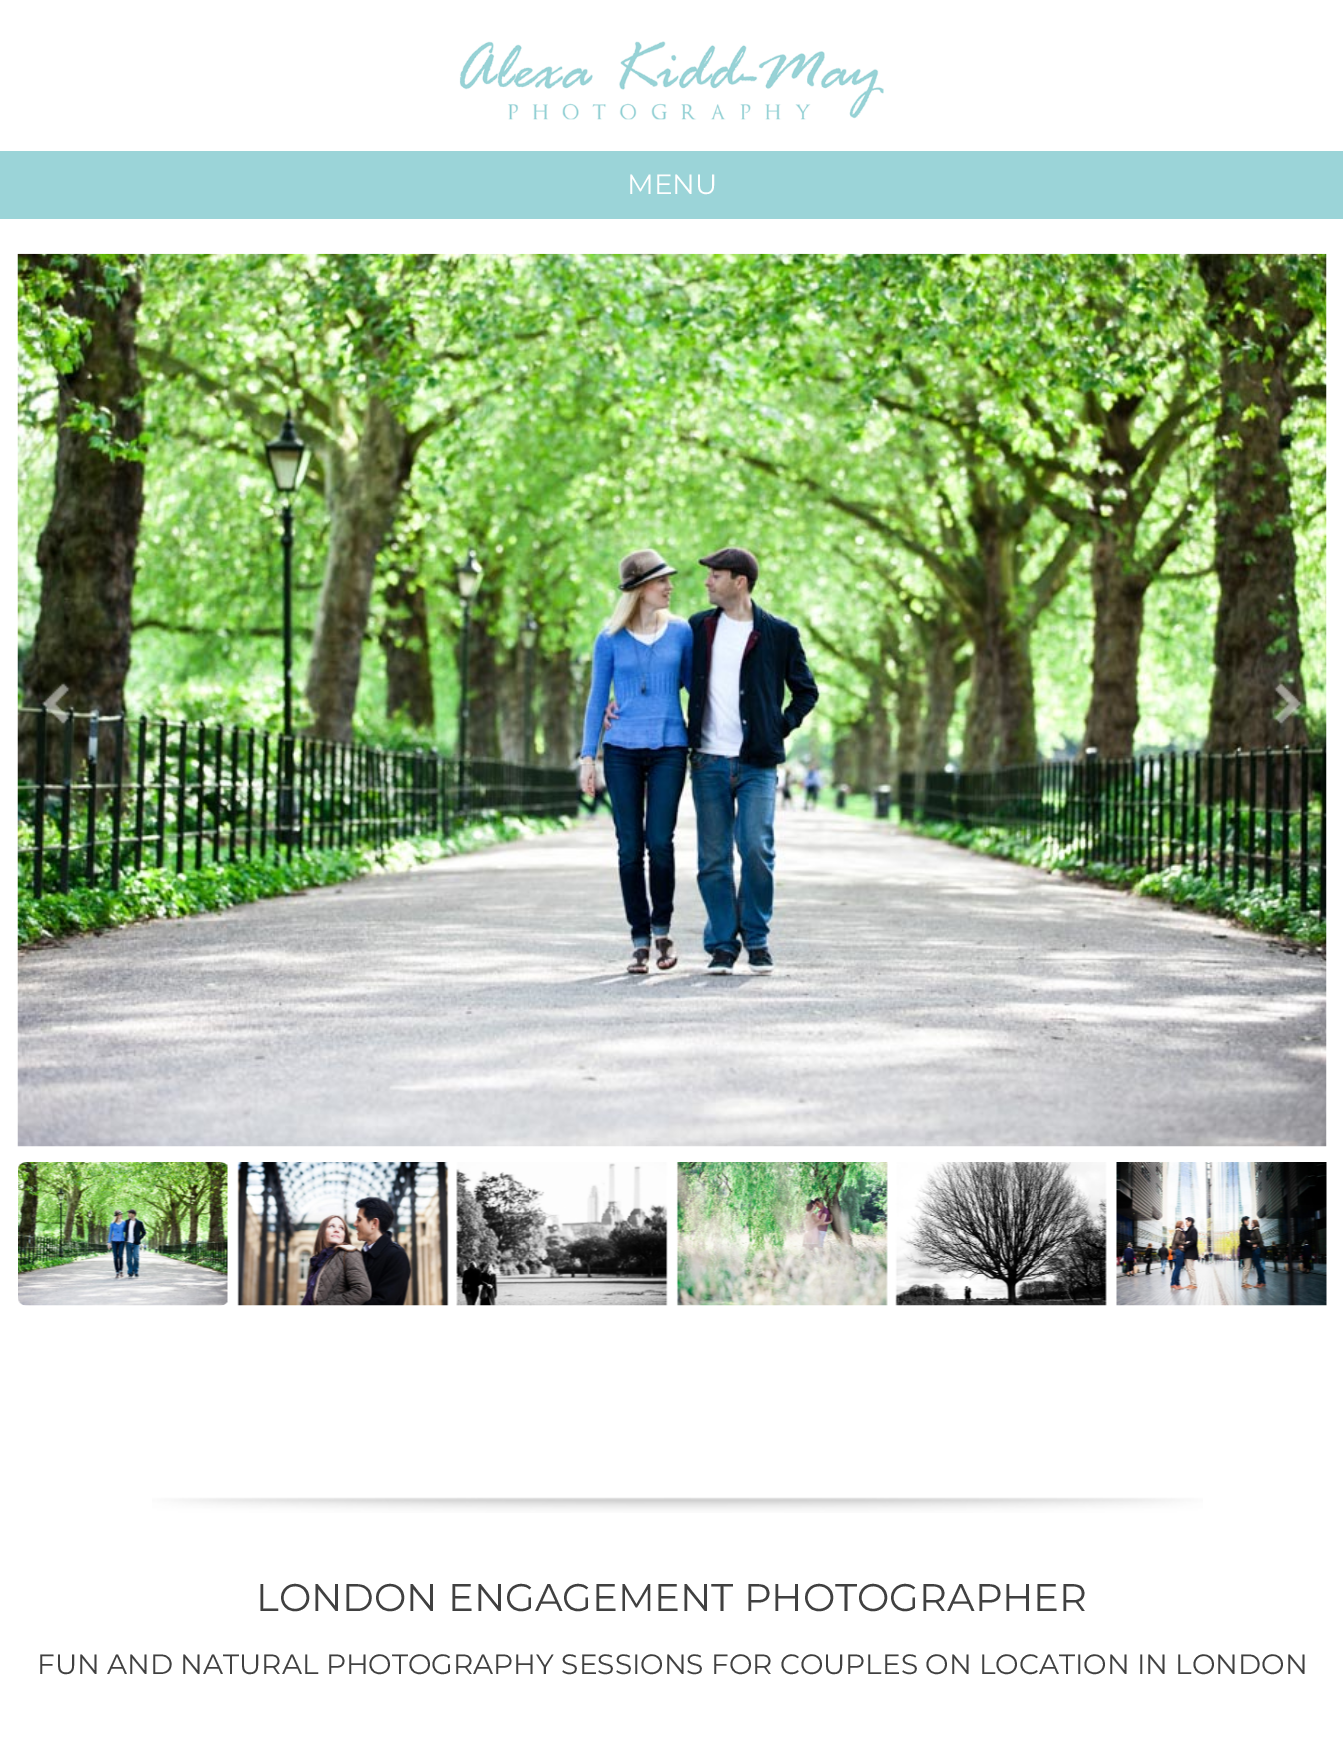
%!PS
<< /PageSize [1343 1738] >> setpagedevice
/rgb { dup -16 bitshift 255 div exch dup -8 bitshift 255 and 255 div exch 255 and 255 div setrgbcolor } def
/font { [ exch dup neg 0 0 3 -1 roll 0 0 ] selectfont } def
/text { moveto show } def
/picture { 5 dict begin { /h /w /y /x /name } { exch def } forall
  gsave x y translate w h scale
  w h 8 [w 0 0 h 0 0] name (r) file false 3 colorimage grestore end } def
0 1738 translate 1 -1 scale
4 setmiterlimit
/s1 { /Montserrat-Thin 28 font 16#FFFFFF rgb } def
/s2 { /Montserrat-Thin 38.5 font 16#404040 rgb } def
/s3 { /Montserrat-Thin 28 font 16#404040 rgb } def
16#FFFFFF rgb
0 0 1343 1738 rectfill
(pic1.raw) 459 41 425 79 picture
16#9BD4D8 rgb
0 151 1343 68 rectfill
s1
(MENU) 627 194 text
(pic2.raw) 17 253 1310 894 picture
(pic3.raw) 42 682 28 43 picture
(pic4.raw) 1274 682 28 43 picture
(pic5.raw) 18 1162 210 144 picture
(pic6.raw) 237 1162 212 144 picture
(pic7.raw) 456 1162 212 144 picture
(pic8.raw) 676 1162 212 144 picture
(pic9.raw) 895 1162 212 144 picture
(pic10.raw) 1116 1162 211 144 picture
(pic11.raw) 152 1497 1051 16 picture
s2
(LONDON ENGAGEMENT PHOTOGRAPHER) 256 1611 text
s3
(FUN AND NATURAL PHOTOGRAPHY SESSIONS FOR COUPLES ON LOCATION IN LONDON) 37 1674 text
showpage
